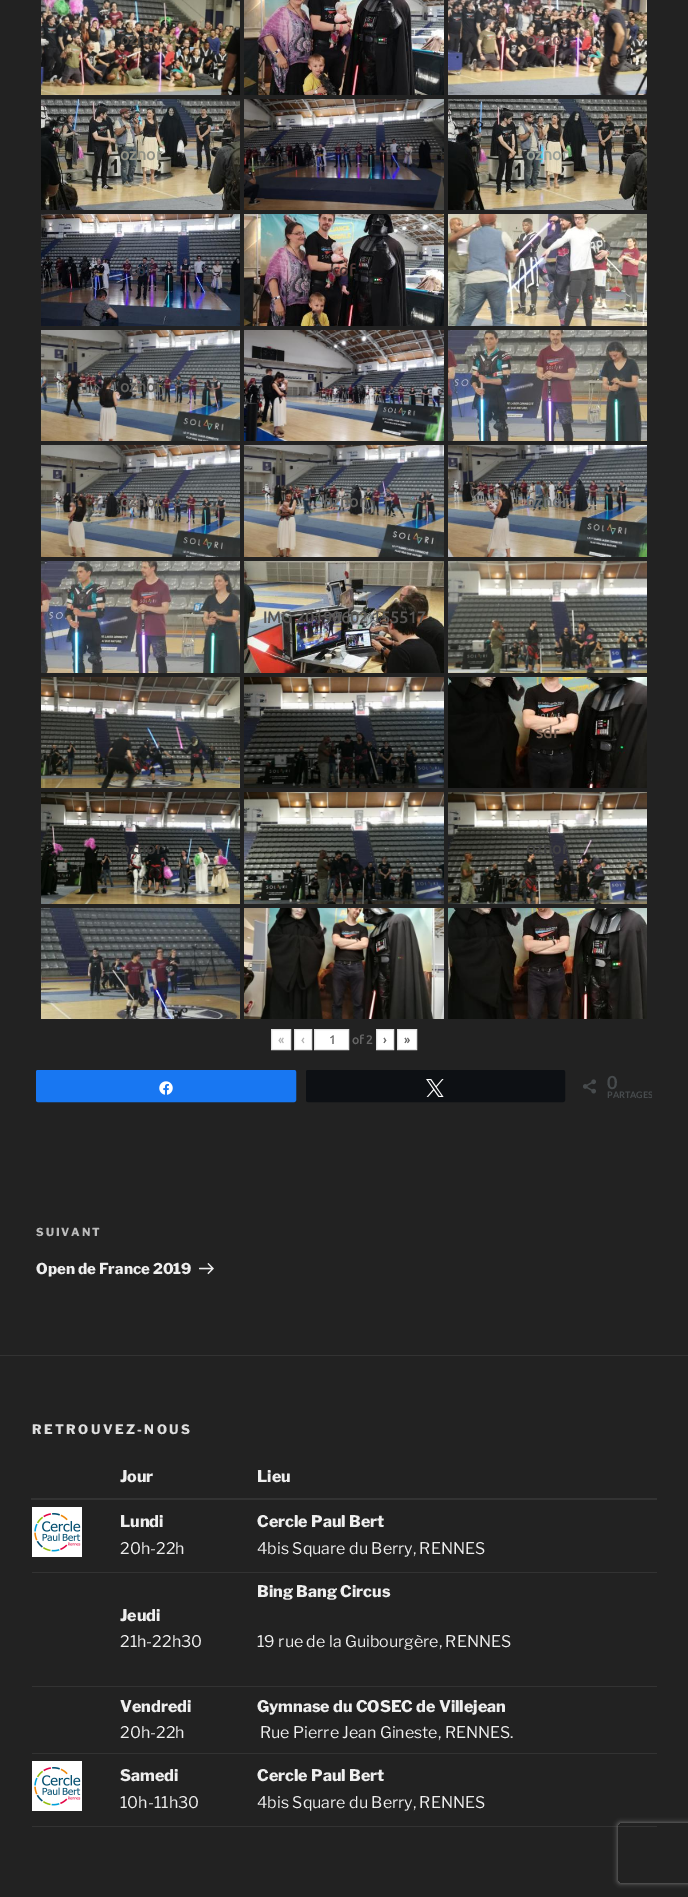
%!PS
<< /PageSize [688 1897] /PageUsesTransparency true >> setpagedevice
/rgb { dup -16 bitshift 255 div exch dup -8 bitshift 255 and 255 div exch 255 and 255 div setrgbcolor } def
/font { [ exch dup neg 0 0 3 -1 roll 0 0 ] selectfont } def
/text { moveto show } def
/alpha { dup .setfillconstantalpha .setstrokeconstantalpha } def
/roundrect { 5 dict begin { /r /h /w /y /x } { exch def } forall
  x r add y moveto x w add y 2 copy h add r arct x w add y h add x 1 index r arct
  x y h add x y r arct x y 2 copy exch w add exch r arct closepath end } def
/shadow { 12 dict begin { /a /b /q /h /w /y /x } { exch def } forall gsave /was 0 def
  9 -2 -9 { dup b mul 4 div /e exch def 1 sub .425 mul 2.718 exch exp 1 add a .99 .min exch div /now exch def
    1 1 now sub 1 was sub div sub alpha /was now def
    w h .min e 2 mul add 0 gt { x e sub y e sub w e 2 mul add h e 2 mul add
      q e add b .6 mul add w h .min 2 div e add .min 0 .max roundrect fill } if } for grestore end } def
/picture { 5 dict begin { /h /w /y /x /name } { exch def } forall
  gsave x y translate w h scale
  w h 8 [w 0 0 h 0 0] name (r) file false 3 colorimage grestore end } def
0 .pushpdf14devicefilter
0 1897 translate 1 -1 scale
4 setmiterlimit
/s1 { /Ubuntu-Bold 16 font 16#4B453F rgb } def
/s2 { /Ubuntu-Bold 16 font 16#7F6361 rgb } def
/s3 { /Ubuntu-Bold 16 font 16#929285 rgb } def
/s4 { /Ubuntu-Bold 16 font 16#9AA097 rgb } def
/s5 { /Ubuntu-Bold 16 font 16#363540 rgb } def
/s6 { /Ubuntu-Bold 16 font 16#4C3735 rgb } def
/s7 { /Ubuntu-Bold 16 font 16#605F5D rgb } def
/s8 { /Ubuntu-Bold 16 font 16#6E6763 rgb } def
/s9 { /Ubuntu-Bold 16 font 16#6E7172 rgb } def
/s10 { /Ubuntu-Bold 16 font 16#585654 rgb } def
/s11 { /Ubuntu-Bold 16 font 16#725D50 rgb } def
/s12 { /Ubuntu-Bold 16 font 16#3A3938 rgb } def
/s13 { /Ubuntu-Bold 16 font 16#404041 rgb } def
/s14 { /Ubuntu-Bold 12 font 16#B3B3B3 rgb } def
/s15 { /Ubuntu-Bold 12 font 16#666666 rgb } def
/s16 { /Lato-Bold 18 font 16#474B4D rgb } def
/s17 { /Lato-Bold 9 font 16#474B4D rgb } def
/s18 { /LibreFranklin-Thin 15 font 16#EEEEEE rgb } def
/s19 { /LibreFranklin-Thin 16 font 16#EEEEEE rgb } def
/s20 { /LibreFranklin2-Thin 16 font 16#EEEEEE rgb } def
16#222222 rgb
0 0 688 1897 rectfill
(pic1.raw) 41 0 199 95 picture
s1
(oznor) 120 45 text
(pic2.raw) 244 0 200 95 picture
(pic3.raw) 448 0 199 95 picture
s2
(oznor) 526 45 text
(pic4.raw) 41 99 199 111 picture
s3
(oznor) 120 160 text
(pic5.raw) 244 99 200 111 picture
(pic6.raw) 448 99 199 111 picture
s4
(oznor) 526 160 text
(pic7.raw) 41 214 199 112 picture
s5
(cof) 129 276 text
(pic8.raw) 244 214 200 112 picture
s6
(cof) 332 276 text
(pic9.raw) 448 214 199 112 picture
(pic10.raw) 41 330 199 111 picture
s7
(oznor) 120 392 text
(pic11.raw) 244 330 200 111 picture
(pic12.raw) 448 330 199 111 picture
(pic13.raw) 41 445 199 112 picture
s8
(oznor) 120 507 text
(pic14.raw) 244 445 200 112 picture
s7
(oznor) 323 507 text
(pic15.raw) 448 445 199 112 picture
s9
(oznor) 526 507 text
(pic16.raw) 41 561 199 112 picture
(pic17.raw) 244 561 200 112 picture
s10
(IMG 20190602 155517) 263 623 text
(pic18.raw) 448 561 199 112 picture
(pic19.raw) 41 677 199 111 picture
(pic20.raw) 244 677 200 111 picture
(pic21.raw) 448 677 199 111 picture
s11
(sdr) 536 738 text
(pic22.raw) 41 792 199 112 picture
s12
(oznor) 120 854 text
(pic23.raw) 244 792 200 112 picture
(pic24.raw) 448 792 199 112 picture
s13
(oznor) 526 854 text
(pic25.raw) 41 908 199 111 picture
(pic26.raw) 244 908 200 111 picture
(pic27.raw) 448 908 199 111 picture
16#FFFFFF rgb
271.5 1029.5 moveto 290.5 1029.5 lineto 290.5 1049.5 lineto 271.5 1049.5 lineto closepath gsave fill grestore
16#E3E3E3 rgb
stroke
s14
(«) 278 1044 text
16#FFFFFF rgb
294.5 1029.5 moveto 311.5 1029.5 lineto 311.5 1049.5 lineto 294.5 1049.5 lineto closepath gsave fill grestore
16#E3E3E3 rgb
stroke
s14
(‹) 301 1044 text
16#FFFFFF rgb
314.5 1029.5 moveto 348.5 1029.5 lineto 348.5 1049.5 lineto 314.5 1049.5 lineto closepath gsave fill grestore
16#E3E3E3 rgb
stroke
s15
(1) 329 1044 text
(of 2) 352 1044 text
16#FFFFFF rgb
376.5 1029.5 moveto 393.5 1029.5 lineto 393.5 1049.5 lineto 376.5 1049.5 lineto closepath gsave fill grestore
16#E3E3E3 rgb
stroke
s15
(›) 383 1044 text
16#FFFFFF rgb
397.5 1029.5 moveto 416.5 1029.5 lineto 416.5 1049.5 lineto 397.5 1049.5 lineto closepath gsave fill grestore
16#E3E3E3 rgb
stroke
s15
(») 404 1044 text
16#1877F2 rgb
36.5 1070.5 259 31 1.5 roundrect gsave fill grestore
stroke
(pic28.raw) 159 1081 14 14 picture
16#0D1014 rgb
306.5 1070.5 258 31 1.5 roundrect gsave fill grestore
stroke
(pic29.raw) 426 1079 18 18 picture
(pic30.raw) 583 1079 13 15 picture
s16
(0) 607 1089 text
gsave
36 1070 616 34 rectclip
s17
(PARTAGES) 607 1098 text
grestore
/LibreFranklin-Thin 11 font
16#BBBBBB rgb
36 1236 moveto 2 0 (SUIVANT) ashow
s18
(Open de France 2019) 36 1274 text
(pic31.raw) 199 1263 15 12 picture
16#333333 rgb
0 1355 688 1 rectfill
/LibreFranklin-Thin 13 font
16#DDDDDD rgb
32 1434 moveto 2.4 0 (RETROUVEZ-NOUS) ashow
s19
(Jour) 120 1482 text
16#333333 rgb
31 1498 626 2 rectfill
s19
(Lieu) 257 1482 text
16#333333 rgb
32 1572 625 1 rectfill
(pic32.raw) 32 1507 50 50 picture
s19
(Lundi) 120 1527 text
s20
(20h-22h) 120 1554 text
s19
(Cercle Paul Bert) 257 1527 text
s20
(4bis Square du Berry, RENNES) 257 1554 text
16#333333 rgb
32 1686 625 1 rectfill
s19
(Jeudi) 120 1621 text
s20
(21h-22h30) 120 1647 text
s19
(Bing Bang Circus) 257 1597 text
s20
(19 rue de la Guibourgère, RENNES) 257 1647 text
16#333333 rgb
32 1753 625 1 rectfill
s19
(Vendredi) 120 1712 text
s20
(20h-22h) 120 1738 text
s19
(Gymnase du COSEC de Villejean) 257 1712 text
s20
(Rue Pierre Jean Gineste, RENNES.) 260 1738 text
16#333333 rgb
32 1826 625 1 rectfill
(pic32.raw) 32 1761 50 50 picture
s19
(Samedi) 120 1781 text
s20
(10h-11h30) 120 1808 text
s19
(Cercle Paul Bert) 257 1781 text
s20
(4bis Square du Berry, RENNES) 257 1808 text
gsave
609 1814 moveto 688 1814 lineto 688 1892 lineto 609 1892 lineto closepath 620 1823 moveto 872 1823 lineto 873 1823 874 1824 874 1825 curveto 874 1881 lineto 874 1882 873 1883 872 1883 curveto 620 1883 lineto 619 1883 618 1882 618 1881 curveto 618 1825 lineto 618 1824 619 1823 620 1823 curveto closepath eoclip newpath
16#808080 rgb
618 1823 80 60 2 2.5 1 shadow
grestore
.poppdf14devicefilter showpage
